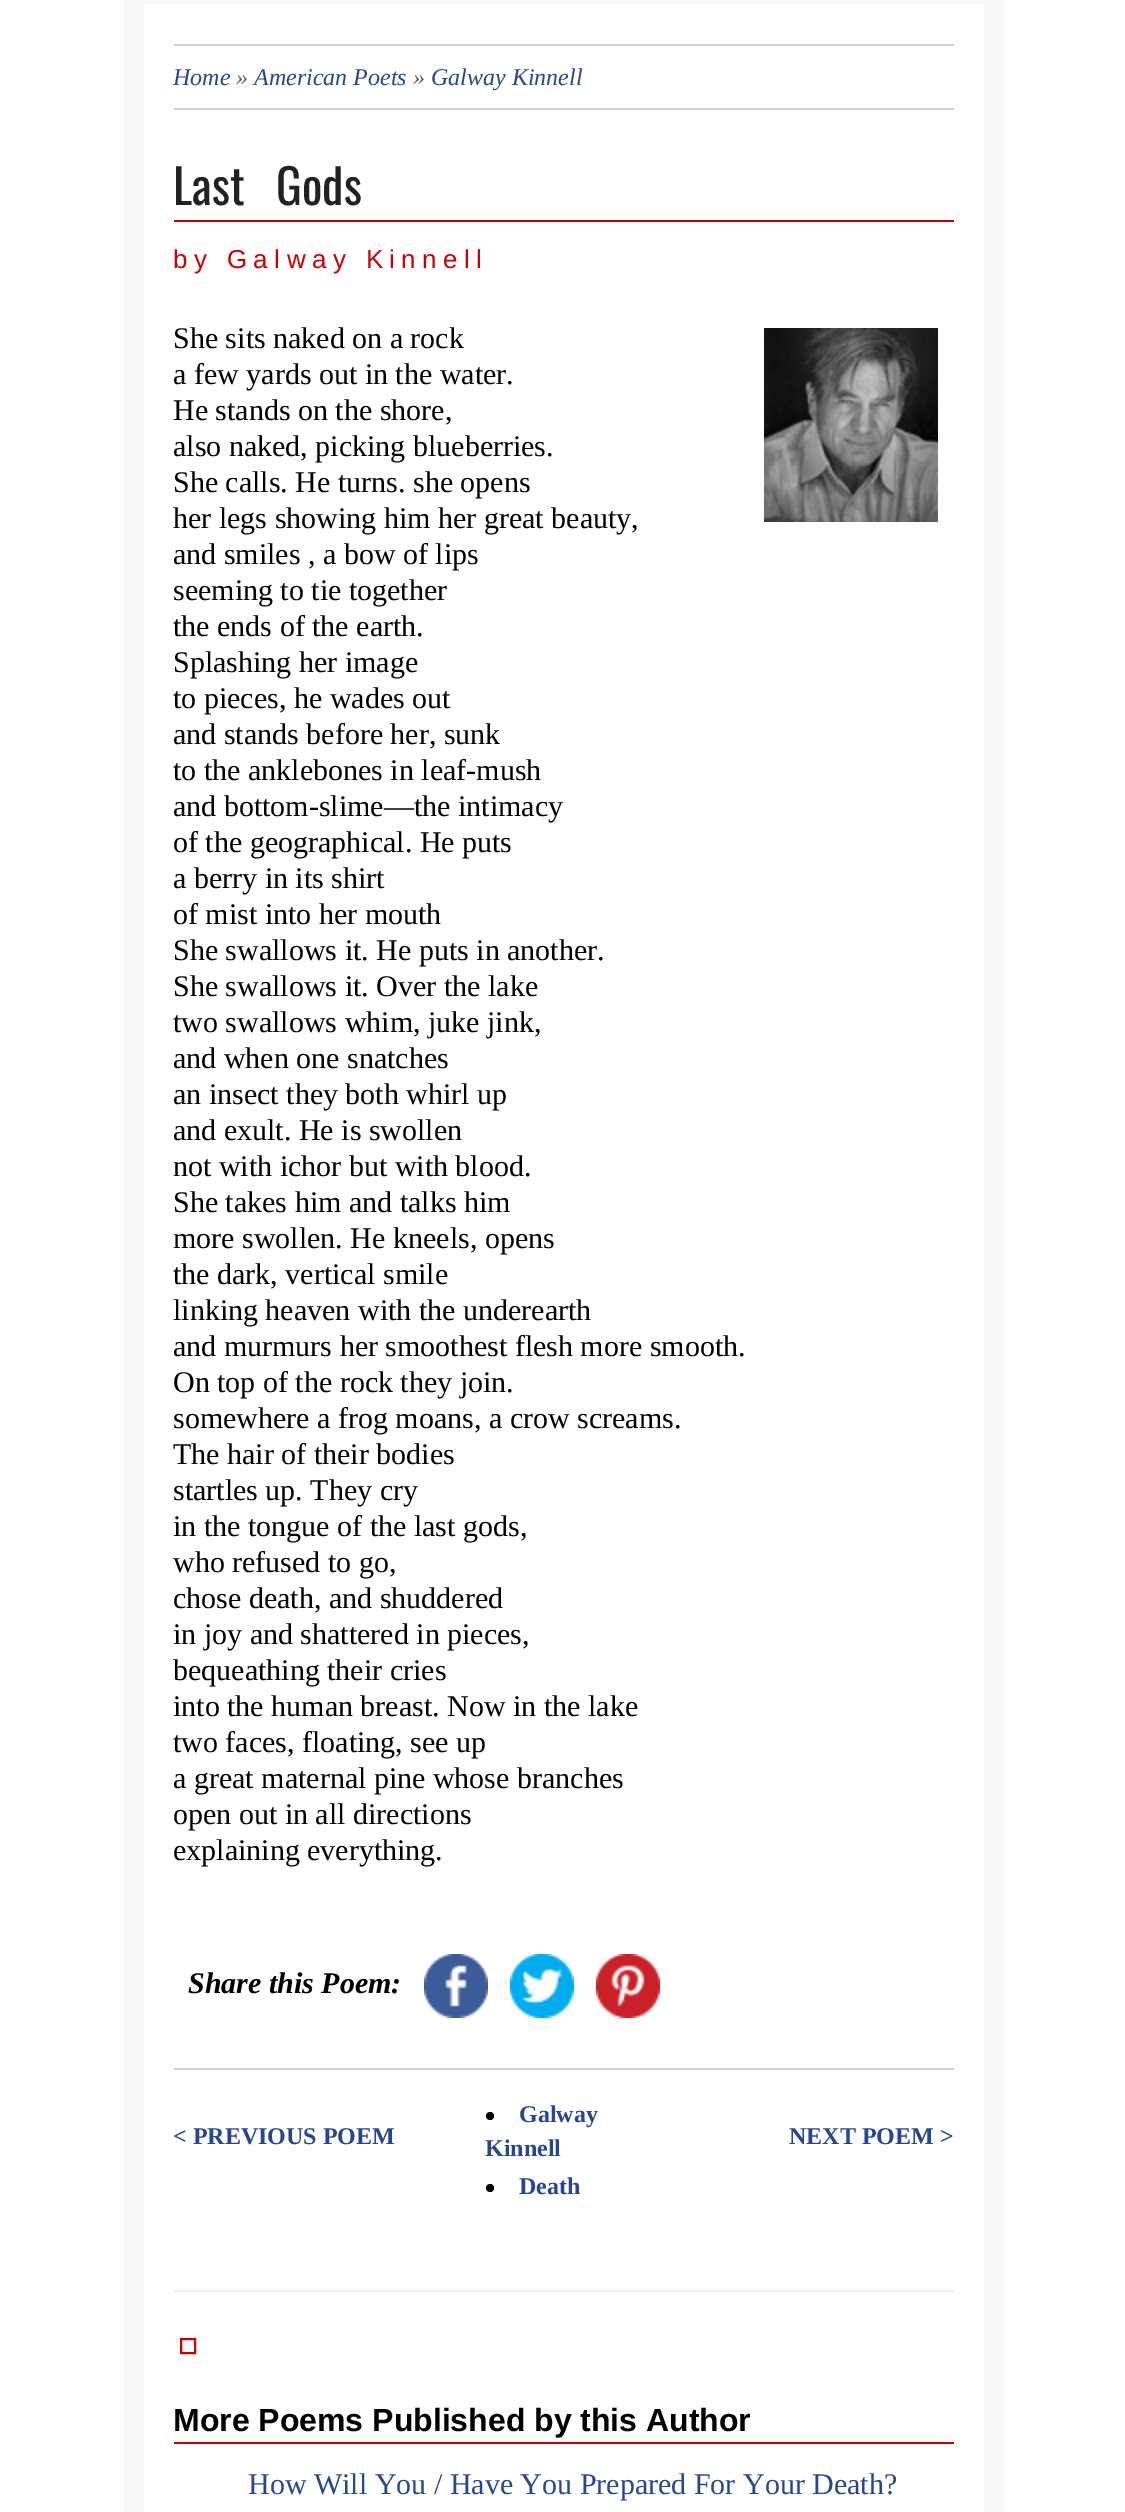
%!PS
<< /PageSize [1125 2512] >> setpagedevice
/rgb { dup -16 bitshift 255 div exch dup -8 bitshift 255 and 255 div exch 255 and 255 div setrgbcolor } def
/font { [ exch dup neg 0 0 3 -1 roll 0 0 ] selectfont } def
/text { moveto show } def
/circle { newpath 0 360 arc closepath } def
/picture { 5 dict begin { /h /w /y /x /name } { exch def } forall
  gsave x y translate w h scale
  w h 8 [w 0 0 h 0 0] name (r) file false 3 colorimage grestore end } def
0 2512 translate 1 -1 scale
4 setmiterlimit
/s1 { /LiberationSerif-Italic 24 font 16#254694 rgb } def
/s2 { /LiberationSerif-Italic 24 font 16#555555 rgb } def
/s3 { /LiberationSerif-Regular 30 font 16#000000 rgb } def
/s4 { /LiberationSerif-BoldItalic 30 font 16#000000 rgb } def
/s5 { /LiberationSerif-Bold 24 font 16#254694 rgb } def
/s6 { /LiberationSans-Bold 32 font 16#000000 rgb } def
/s7 { /LiberationSerif-Regular 30 font 16#254694 rgb } def
16#FFFFFF rgb
0 0 1125 2512 rectfill
16#F9F9F9 rgb
20 setlinewidth
134 -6 860 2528 rectstroke
16#D0D0D0 rgb
174 44 780 2 rectfill
174 108 780 2 rectfill
s1
(Home) 173 85 text
s2
(») 236 85 text
s1
(American Poets) 254 85 text
s2
(») 413 85 text
s1
(Galway Kinnell) 431 85 text
16#CC0000 rgb
174 220 780 2 rectfill
/Oswald-Regular 48 font
16#222222 rgb
173 205 moveto 21 0 32 (Last Gods) widthshow
/LiberationSans-Regular 26 font
16#CC0000 rgb
173 268 moveto 6.4 0 (by Galway Kinnell) ashow
s3
(She sits naked on a rock) 173 348 text
(a few yards out in the water.) 173 384 text
(He stands on the shore,) 173 420 text
(also naked, picking blueberries.) 173 456 text
(She calls. He turns. she opens) 173 492 text
(her legs showing him her great beauty,) 173 528 text
(and smiles , a bow of lips) 173 564 text
(seeming to tie together) 173 600 text
(the ends of the earth.) 173 636 text
(Splashing her image) 173 672 text
(to pieces, he wades out) 173 708 text
(and stands before her, sunk) 173 744 text
(to the anklebones in leaf-mush) 173 780 text
(and bottom-slime—the intimacy) 173 816 text
(of the geographical. He puts) 173 852 text
(a berry in its shirt) 173 888 text
(of mist into her mouth) 173 924 text
(She swallows it. He puts in another.) 173 960 text
(She swallows it. Over the lake) 173 996 text
(two swallows whim, juke jink,) 173 1032 text
(and when one snatches) 173 1068 text
(an insect they both whirl up) 173 1104 text
(and exult. He is swollen) 173 1140 text
(not with ichor but with blood.) 173 1176 text
(She takes him and talks him) 173 1212 text
(more swollen. He kneels, opens) 173 1248 text
(the dark, vertical smile) 173 1284 text
(linking heaven with the underearth) 173 1320 text
(and murmurs her smoothest flesh more smooth.) 173 1356 text
(On top of the rock they join.) 173 1392 text
(somewhere a frog moans, a crow screams.) 173 1428 text
(The hair of their bodies) 173 1464 text
(startles up. They cry) 173 1500 text
(in the tongue of the last gods,) 173 1536 text
(who refused to go,) 173 1572 text
(chose death, and shuddered) 173 1608 text
(in joy and shattered in pieces,) 173 1644 text
(bequeathing their cries) 173 1680 text
(into the human breast. Now in the lake) 173 1716 text
(two faces, floating, see up) 173 1752 text
(a great maternal pine whose branches) 173 1788 text
(open out in all directions) 173 1824 text
(explaining everything.) 173 1860 text
(pic1.raw) 764 328 174 194 picture
s4
(Share this Poem:) 188 1993 text
(pic2.raw) 424 1954 64 64 picture
(pic3.raw) 510 1954 64 64 picture
(pic4.raw) 596 1954 64 64 picture
16#D0D0D0 rgb
174 2068 780 2 rectfill
16#000000 rgb
490 2116 4 circle fill
s5
(Galway) 519 2122 text
(Kinnell) 485 2156 text
16#000000 rgb
490 2188 4 circle fill
s5
(Death) 519 2194 text
(< PREVIOUS POEM) 173 2144 text
(NEXT POEM >) 789 2144 text
16#EEEEEE rgb
174 2290 780 2 rectfill
16#CC0000 rgb
2 setlinewidth
181 2339 14 14 rectstroke
174 2442 780 2 rectfill
s6
(More Poems Published by this Author) 173 2431 text
s7
(How Will You / Have You Prepared For Your Death?) 248 2494 text
showpage
